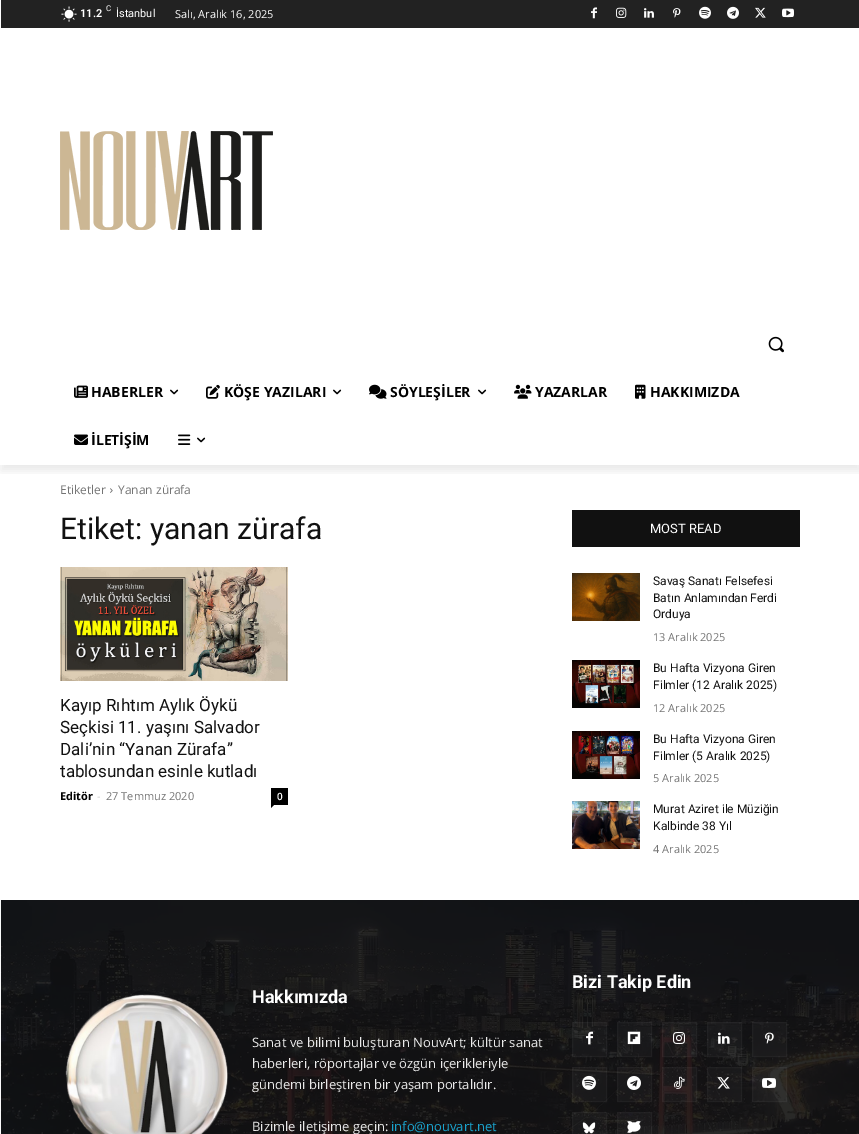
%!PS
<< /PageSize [859 1134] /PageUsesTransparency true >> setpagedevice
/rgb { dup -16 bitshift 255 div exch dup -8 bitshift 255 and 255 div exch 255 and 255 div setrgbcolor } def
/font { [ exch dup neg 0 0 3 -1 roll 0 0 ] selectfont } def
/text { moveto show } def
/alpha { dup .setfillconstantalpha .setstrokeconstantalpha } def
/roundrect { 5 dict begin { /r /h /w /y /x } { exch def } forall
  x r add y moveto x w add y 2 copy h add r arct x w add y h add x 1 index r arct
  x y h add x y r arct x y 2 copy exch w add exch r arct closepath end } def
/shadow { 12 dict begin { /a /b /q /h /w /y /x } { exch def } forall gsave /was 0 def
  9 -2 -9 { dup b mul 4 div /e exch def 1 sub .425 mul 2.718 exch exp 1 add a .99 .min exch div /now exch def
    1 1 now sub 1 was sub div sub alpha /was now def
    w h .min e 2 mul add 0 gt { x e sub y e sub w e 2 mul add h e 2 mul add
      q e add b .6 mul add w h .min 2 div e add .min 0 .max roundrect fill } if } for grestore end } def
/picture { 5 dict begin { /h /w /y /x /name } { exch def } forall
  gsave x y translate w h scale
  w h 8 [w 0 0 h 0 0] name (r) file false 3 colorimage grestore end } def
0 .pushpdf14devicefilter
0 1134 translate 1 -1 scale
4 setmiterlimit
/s1 { /Roboto-SemiBold 11 font 16#FFFFFF rgb } def
/s2 { /Roboto-Regular 8 font 16#FFFFFF rgb } def
/s3 { /Roboto-Regular 11 font 16#FFFFFF rgb } def
/s4 { /OpenSans-Regular 11 font 16#FFFFFF rgb } def
/s5 { /OpenSans-Bold 14 font 16#000000 rgb } def
/s6 { /OpenSans-Regular 12 font 16#747474 rgb } def
/s7 { /Roboto-Regular 30 font 16#111111 rgb } def
/s8 { /Roboto-Regular 17 font 16#111111 rgb } def
/s9 { /OpenSans-Bold 11 font 16#000000 rgb } def
/s10 { /OpenSans-Regular 11 font 16#CCCCCC rgb } def
/s11 { /OpenSans-Regular 11 font 16#747474 rgb } def
/s12 { /OpenSans-SemiBold 10 font 16#FFFFFF rgb } def
/s13 { /Roboto-Regular 13 font 16#FFFFFF rgb } def
/s14 { /Roboto-Regular 12 font 16#111111 rgb } def
/s15 { /Roboto-Bold 18 font 16#FFFFFF rgb } def
/s16 { /OpenSans-Regular 13 font 16#EAEAEA rgb } def
/s17 { /OpenSans-Regular 13 font 16#1AA4CE rgb } def
16#FFFFFF rgb
0 0 859 1134 rectfill
16#222222 rgb
1 0 858 28 rectfill
(pic1.raw) 61 6 16 16 picture
(pic2.raw) 591 7 6 12 picture
(pic3.raw) 616 7 11 11 picture
(pic4.raw) 644 8 10 10 picture
(pic5.raw) 673 8 8 10 picture
(pic6.raw) 699 6 12 13 picture
(pic7.raw) 727 6 12 13 picture
(pic8.raw) 755 7 11 11 picture
(pic9.raw) 782 8 12 10 picture
(pic10.raw) 60 131 213 99 picture
gsave
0 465 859 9 rectclip
16#000000 rgb
1 6 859 465 0 4 0.08 shadow
grestore
s1
(11.2) 80 17 text
s2
(C) 106 11 text
s3
(İstanbul) 116 17 text
s4
(Salı, Aralık 16, 2025) 175 18 text
(pic11.raw) 768 336 16 17 picture
(pic12.raw) 74 385 14 13 picture
s5
(HABERLER) 91 397 text
(pic13.raw) 170 389 9 6 picture
(pic14.raw) 206 384 14 15 picture
(KÖŞE YAZILARI) 224 397 text
(pic13.raw) 333 389 9 6 picture
(pic15.raw) 369 384 18 15 picture
(SÖYLEŞİLER) 390 397 text
(pic13.raw) 478 389 9 6 picture
(pic16.raw) 514 384 18 15 picture
(YAZARLAR) 535 397 text
(pic17.raw) 635 384 11 15 picture
(HAKKIMIZDA) 650 397 text
(pic18.raw) 74 434 14 11 picture
(İLETİŞİM) 91 445 text
(pic19.raw) 178 434 13 11 picture
(pic13.raw) 197 437 9 6 picture
s6
(Etiketler) 60 494 text
(pic20.raw) 110 488 3 5 picture
(Yanan zürafa) 118 494 text
s7
(Etiket: yanan zürafa) 60 539 text
(pic21.raw) 60 567 228 114 picture
s8
(Kayıp Rıhtım Aylık Öykü) 60 711 text
(Seçkisi 11. yaşını Salvador) 60 733 text
(Dali’nin “Yanan Zürafa”) 60 755 text
(tablosundan esinle kutladı) 60 777 text
s9
(Editör) 60 800 text
s10
(-) 97 800 text
s11
(27 Temmuz 2020) 106 800 text
16#000000 rgb
271 788 17 17 rectfill
s12
(0) 277 800 text
16#000000 rgb
271 805 moveto 274 805 lineto 271 808 lineto closepath fill
16#111111 rgb
572 510 228 37 rectfill
s13
(MOST READ) 650 533 text
(pic22.raw) 572 573 68 48 picture
s14
(Savaş Sanatı Felsefesi) 653 585 text
(Batın Anlamından Ferdi) 653 602 text
(Orduya) 653 618 text
s11
(13 Aralık 2025) 653 641 text
(pic23.raw) 572 660 68 48 picture
s14
(Bu Hafta Vizyona Giren) 653 672 text
(Filmler \(12 Aralık 2025\)) 653 689 text
s11
(12 Aralık 2025) 653 712 text
(pic24.raw) 572 731 68 48 picture
s14
(Bu Hafta Vizyona Giren) 653 743 text
(Filmler \(5 Aralık 2025\)) 653 760 text
s11
(5 Aralık 2025) 653 782 text
(pic25.raw) 572 801 68 48 picture
s14
(Murat Aziret ile Müziğin) 653 813 text
(Kalbinde 38 Yıl) 653 830 text
s11
(4 Aralık 2025) 653 853 text
16#111111 rgb
1 900 858 234 rectfill
(pic26.raw) 0 900 859 234 picture
s15
(Bizi Takip Edin) 572 988 text
0.03 alpha
572 1022 35 35 rectfill
572.5 1022.5 34 34 rectstroke
1 alpha
(pic27.raw) 586 1031 7 14 picture
0.03 alpha
617 1022 35 35 rectfill
617.5 1022.5 34 34 rectstroke
1 alpha
(pic28.raw) 627 1031 14 14 picture
0.03 alpha
662 1022 35 35 rectfill
662.5 1022.5 34 34 rectstroke
1 alpha
(pic29.raw) 673 1032 12 12 picture
0.03 alpha
707 1022 35 35 rectfill
707.5 1022.5 34 34 rectstroke
1 alpha
(pic30.raw) 718 1032 12 12 picture
0.03 alpha
752 1022 35 35 rectfill
752.5 1022.5 34 34 rectstroke
1 alpha
(pic31.raw) 765 1032 9 12 picture
0.03 alpha
572 1067 35 35 rectfill
572.5 1067.5 34 34 rectstroke
1 alpha
(pic32.raw) 582 1075 14 15 picture
0.03 alpha
617 1067 35 35 rectfill
617.5 1067.5 34 34 rectstroke
1 alpha
(pic33.raw) 627 1076 14 14 picture
0.03 alpha
662 1067 35 35 rectfill
662.5 1067.5 34 34 rectstroke
1 alpha
(pic34.raw) 674 1076 11 13 picture
0.03 alpha
707 1067 35 35 rectfill
707.5 1067.5 34 34 rectstroke
1 alpha
(pic35.raw) 717 1077 13 12 picture
0.03 alpha
752 1067 35 35 rectfill
752.5 1067.5 34 34 rectstroke
1 alpha
(pic36.raw) 762 1078 14 10 picture
0.03 alpha
572 1112 35 22 rectfill
572.5 1112.5 34 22 rectstroke
1 alpha
(pic37.raw) 582 1122 14 12 picture
0.03 alpha
617 1112 35 22 rectfill
617.5 1112.5 34 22 rectstroke
1 alpha
(pic38.raw) 627 1121 14 12 picture
(pic39.raw) 65 994 163 140 picture
(Hakkımızda) 252 1003 text
s16
(Sanat ve bilimi buluşturan NouvArt; kültür sanat) 252 1047 text
(haberleri, röportajlar ve özgün içerikleriyle) 252 1068 text
(gündemi birleştiren bir yaşam portalıdır.) 252 1089 text
(Bizimle iletişime geçin:) 252 1131 text
s17
(info@nouvart.net) 391 1131 text
.poppdf14devicefilter showpage
